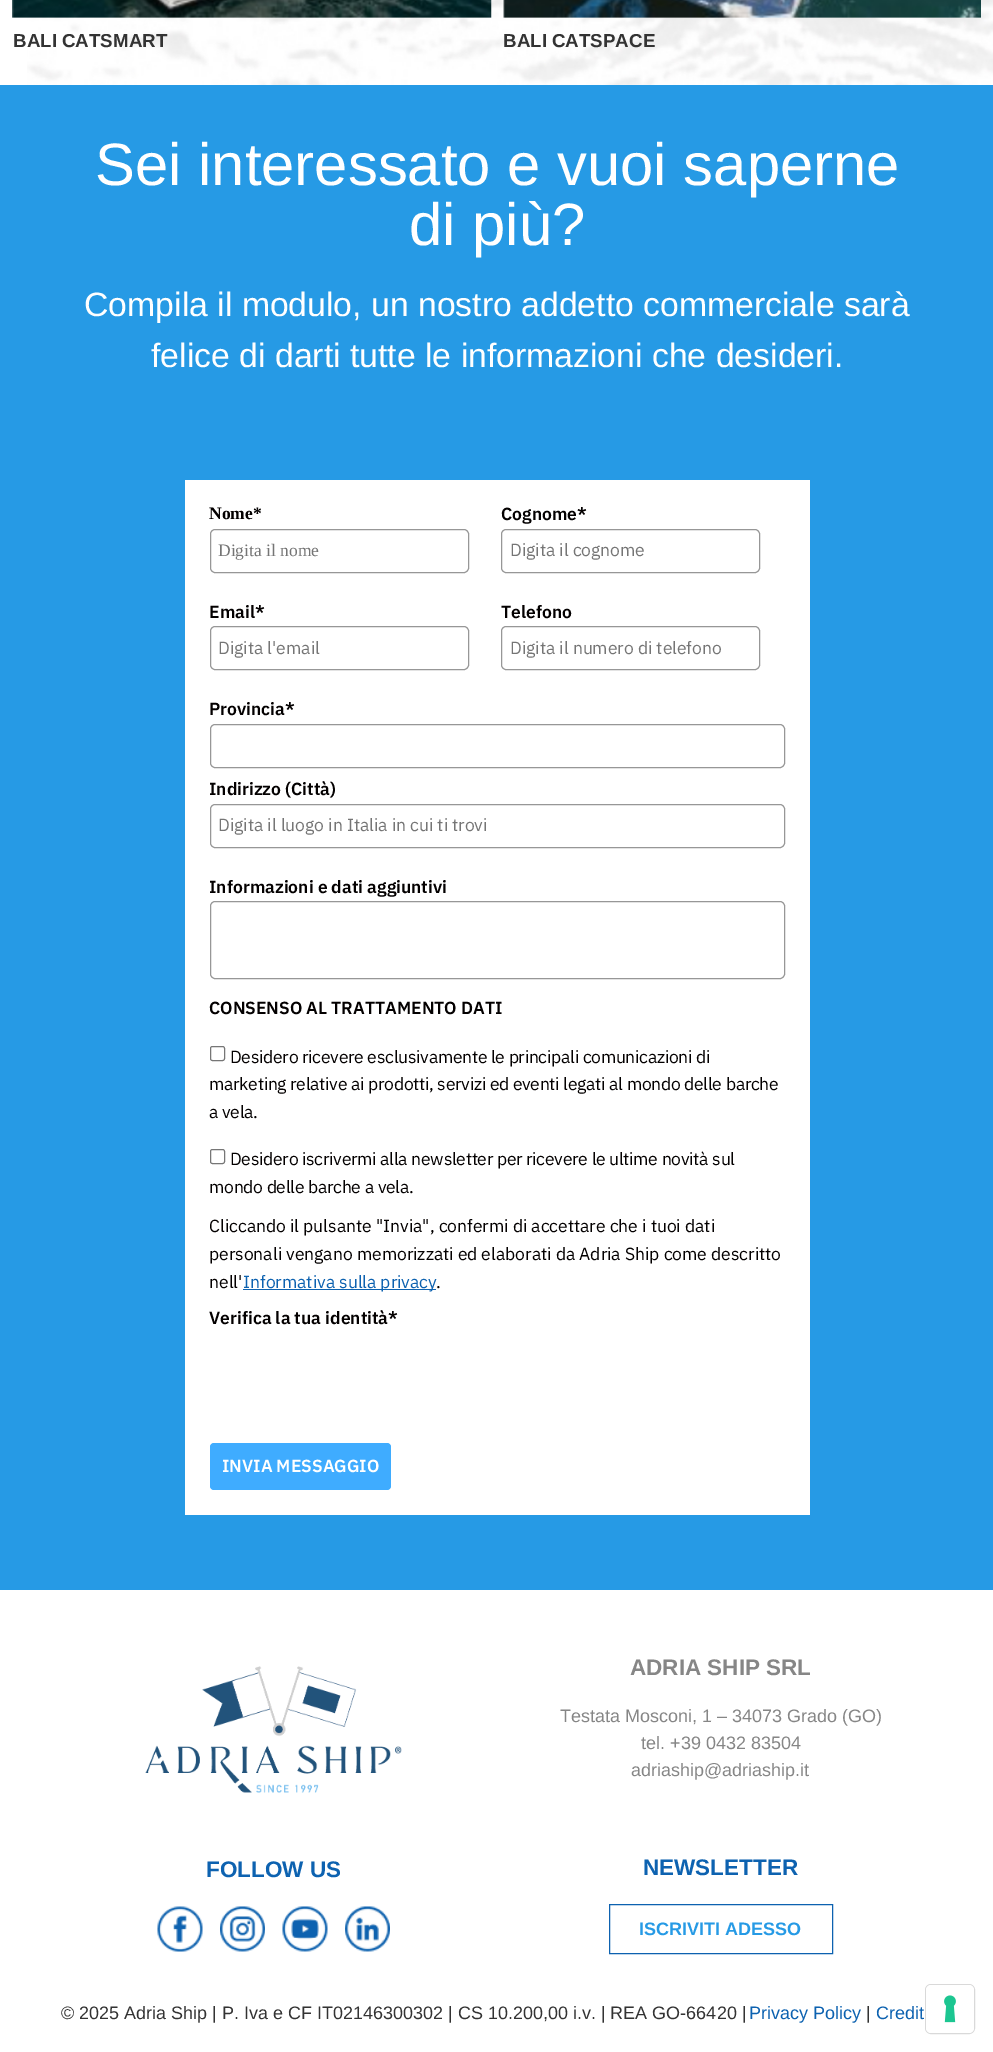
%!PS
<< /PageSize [993 2052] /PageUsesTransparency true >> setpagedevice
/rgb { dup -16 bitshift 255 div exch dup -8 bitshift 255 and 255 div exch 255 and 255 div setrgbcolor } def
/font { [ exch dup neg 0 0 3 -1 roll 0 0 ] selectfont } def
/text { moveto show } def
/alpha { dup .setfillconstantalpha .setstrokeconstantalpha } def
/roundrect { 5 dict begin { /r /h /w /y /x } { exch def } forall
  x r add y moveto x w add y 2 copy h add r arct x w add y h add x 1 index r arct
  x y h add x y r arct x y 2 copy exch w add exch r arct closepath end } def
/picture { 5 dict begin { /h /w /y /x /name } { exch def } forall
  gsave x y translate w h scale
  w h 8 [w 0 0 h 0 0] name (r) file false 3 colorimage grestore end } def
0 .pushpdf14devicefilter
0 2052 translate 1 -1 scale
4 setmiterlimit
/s1 { /LiberationSans-Bold 18.75 font 16#333333 rgb } def
/s2 { /LiberationSans-Regular 59.8 font 16#FFFFFF rgb } def
/s3 { /LiberationSans-Regular 33.75 font 16#FFFFFF rgb } def
/s4 { /LiberationSerif-Bold 17.5 font 16#030000 rgb } def
/s5 { /LiberationSerif-Regular 17.5 font 16#757575 rgb } def
/s6 { /IBMPlexSans-SemiBold 17.5 font 16#030000 rgb } def
/s7 { /IBMPlexSans-Regular 17.5 font 16#757575 rgb } def
/s8 { /IBMPlexSans-Regular 17.5 font 16#030000 rgb } def
/s9 { /IBMPlexSans-Regular 17.5 font 16#0D62B0 rgb } def
/s10 { /IBMPlexSans-SemiBold 17.5 font 16#FFFFFF rgb } def
/s11 { /LiberationSans-Bold 22.5 font 16#868686 rgb } def
/s12 { /LiberationSans-Regular 18 font 16#868686 rgb } def
/s13 { /LiberationSans-Bold 22.5 font 16#0D62B0 rgb } def
/s14 { /LiberationSans-Bold 18 font 16#269AE5 rgb } def
/s15 { /LiberationSans-Regular 18 font 16#333333 rgb } def
/s16 { /LiberationSans-Regular 18 font 16#0D62B0 rgb } def
16#FFFFFF rgb
0 0 993 2052 rectfill
(pic1.raw) 27 0 966 85 picture
(pic2.raw) 12 0 480 18 picture
s1
(BALI CATSMART) 13 47 text
(pic3.raw) 503 0 478 18 picture
(BALI CATSPACE) 503 47 text
16#269AE5 rgb
0 85 993 1505 rectfill
s2
(Sei interessato e vuoi saperne) 95 185 text
(di più?) 409 245 text
s3
(Compila il modulo, un nostro addetto commerciale sarà) 84 316 text
(felice di darti tutte le informazioni che desideri.) 151 367 text
185 480 625 1035 rectfill
s4
(Nome*) 209 519 text
16#979797 rgb
210.5 529.5 258 43 4.5 roundrect stroke
s5
(Digita il nome) 218 556 text
s6
(Cognome*) 501 520 text
16#979797 rgb
501.5 529.5 258 43 4.5 roundrect stroke
s7
(Digita il cognome) 510 556 text
s6
(Email*) 209 618 text
16#979797 rgb
210.5 626.5 258 43 4.5 roundrect stroke
s7
(Digita l'email) 218 654 text
s6
(Telefono) 501 618 text
16#979797 rgb
501.5 626.5 258 43 4.5 roundrect stroke
s7
(Digita il numero di telefono) 510 654 text
s6
(Provincia*) 209 715 text
16#979797 rgb
210.5 724.5 574 43 4.5 roundrect stroke
s6
(Indirizzo \(Città\)) 209 795 text
16#979797 rgb
210.5 804.5 574 43 4.5 roundrect stroke
s7
(Digita il luogo in Italia in cui ti trovi) 218 831 text
s6
(Informazioni e dati aggiuntivi) 209 893 text
16#979797 rgb
210.5 901.5 574 77 4.5 roundrect stroke
s6
(CONSENSO AL TRATTAMENTO DATI) 209 1014 text
16#767676 rgb
210.5 1046.5 14 14 2 roundrect stroke
/IBMPlexSans-Regular 17.5 font
16#030000 rgb
230 1063 moveto -0.25 0 (Desidero ricevere esclusivamente le principali comunicazioni di) ashow
209 1090 moveto -0.25 0 (marketing relative ai prodotti, servizi ed eventi legati al mondo delle barche) ashow
209 1118 moveto -0.25 0 (a vela.) ashow
16#767676 rgb
210.5 1149.5 14 14 2 roundrect stroke
16#030000 rgb
230 1165 moveto -0.25 0 (Desidero iscrivermi alla newsletter per ricevere le ultime novità sul) ashow
209 1193 moveto -0.25 0 (mondo delle barche a vela.) ashow
(Cliccando il pulsante "Invia", confermi di accettare che i tuoi dati) 209 1232 text
(personali vengano memorizzati ed elaborati da Adria Ship come descritto) 209 1260 text
(nell') 209 1288 text
16#0D62B0 rgb
243 1289 193 1 rectfill
(Informativa sulla privacy) 243 1288 text
s8
(.) 436 1288 text
s6
(Verifica la tua identità*) 209 1324 text
16#3FACFF rgb
210 1443 181 47 4 roundrect fill
s10
(INVIA MESSAGGIO) 222 1472 text
(pic4.raw) 145 1666 257 127 picture
s11
(ADRIA SHIP SRL) 630 1675 text
s12
(Testata Mosconi, 1 – 34073 Grado \(GO\)) 560 1722 text
(tel. +39 0432 83504) 641 1749 text
(adriaship@adriaship.it) 631 1776 text
s13
(FOLLOW US) 206 1877 text
(pic5.raw) 157 1906 46 46 picture
(pic6.raw) 220 1906 45 46 picture
(pic7.raw) 282 1906 46 46 picture
(pic8.raw) 345 1906 45 46 picture
(NEWSLETTER) 643 1875 text
609.5 1904.5 223 49 rectstroke
s14
(ISCRIVITI ADESSO) 639 1935 text
s15
(© 2025 Adria Ship | P. Iva e CF IT02146300302 | CS 10.200,00 i.v. | REA GO-66420 |) 61 2019 text
s16
(Privacy Policy) 749 2019 text
s15
(|) 866 2019 text
s16
(Credit) 876 2019 text
0.15 alpha
16#000000 rgb
925.5 1984.5 49 49 5.5 roundrect stroke
1 alpha
16#FFFFFF rgb
926 1985 48 48 5 roundrect fill
(pic9.raw) 944 1995 12 28 picture
.poppdf14devicefilter showpage
